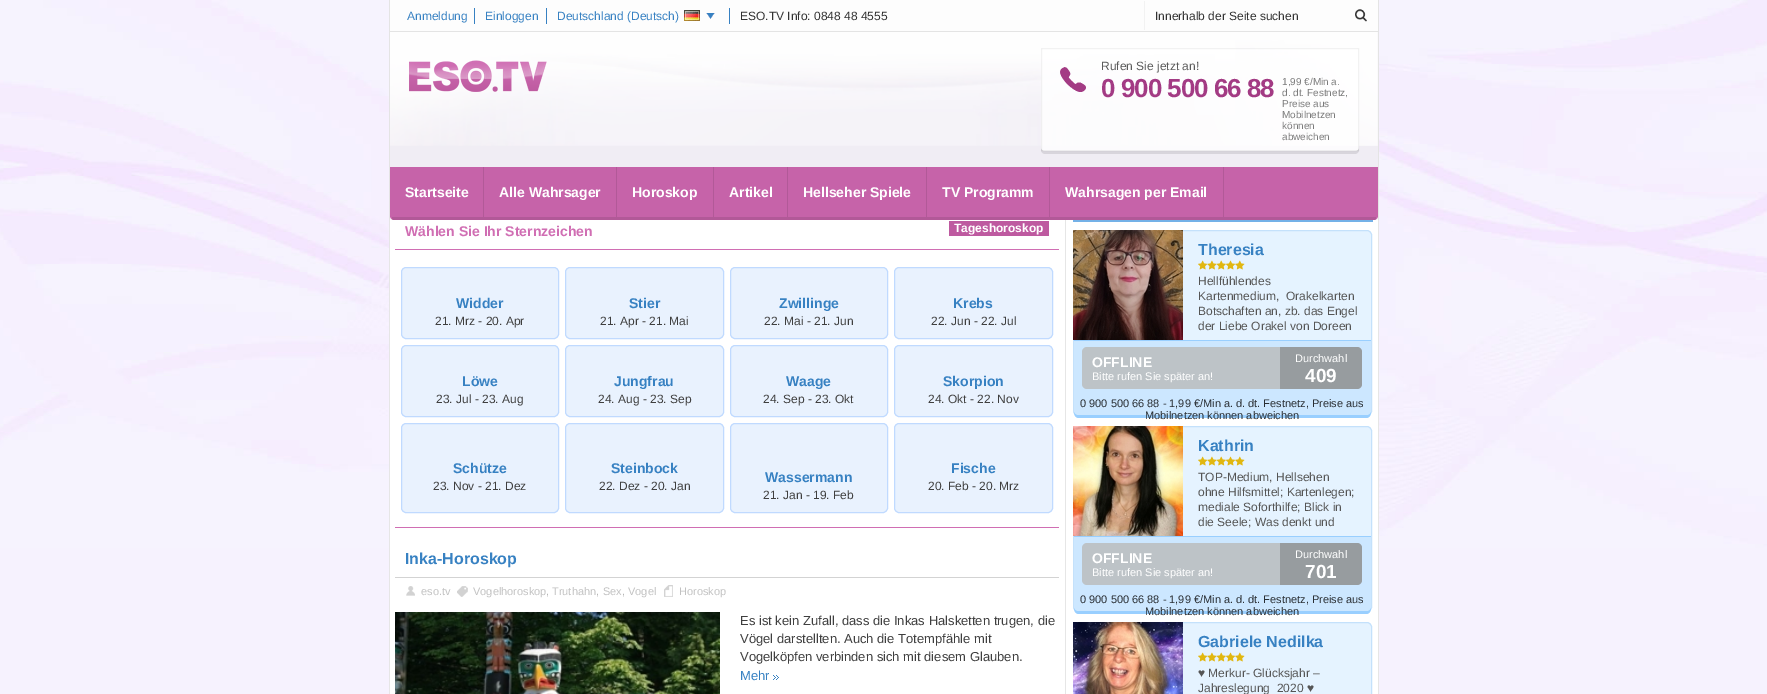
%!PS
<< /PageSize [1767 694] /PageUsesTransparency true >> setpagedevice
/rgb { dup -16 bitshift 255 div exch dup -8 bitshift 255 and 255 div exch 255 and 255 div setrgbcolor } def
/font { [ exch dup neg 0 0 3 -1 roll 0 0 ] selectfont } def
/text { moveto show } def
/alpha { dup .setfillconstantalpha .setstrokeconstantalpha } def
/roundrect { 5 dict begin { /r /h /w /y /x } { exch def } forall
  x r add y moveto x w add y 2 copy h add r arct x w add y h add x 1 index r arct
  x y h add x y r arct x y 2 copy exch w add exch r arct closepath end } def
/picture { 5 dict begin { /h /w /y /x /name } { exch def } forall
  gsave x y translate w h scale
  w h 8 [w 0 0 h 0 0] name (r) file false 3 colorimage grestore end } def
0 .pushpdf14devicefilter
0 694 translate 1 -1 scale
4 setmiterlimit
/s1 { /LiberationSans-Regular 12 font 16#3781C2 rgb } def
/s2 { /LiberationSans-Regular 12 font 16#323232 rgb } def
/s3 { /LiberationSans-Regular 12 font 16#5B5B5B rgb } def
/s4 { /LiberationSans-Regular 10 font 16#7A7A7A rgb } def
/s5 { /LiberationSans-Bold 14 font 16#FFFFFF rgb } def
/s6 { /LiberationSans-Bold 14 font 16#D06EB3 rgb } def
/s7 { /LiberationSans-Bold 12 font 16#FFFFFF rgb } def
/s8 { /LiberationSans-Bold 14 font 16#3781C2 rgb } def
/s9 { /LiberationSans-Regular 12 font 16#3F3F3F rgb } def
/s10 { /LiberationSans-Bold 16 font 16#3781C2 rgb } def
/s11 { /LiberationSans-Regular 11 font 16#C2C2C2 rgb } def
/s12 { /LiberationSans-Regular 11 font 16#B6B6B6 rgb } def
/s13 { /LiberationSans-Regular 13 font 16#3F3F3F rgb } def
/s14 { /LiberationSans-Regular 13 font 16#3781C2 rgb } def
/s15 { /LiberationSans-Regular 12 font 16#555555 rgb } def
/s16 { /LiberationSans-Regular 11 font 16#FFFFFF rgb } def
/s17 { /LiberationSans-Bold 19 font 16#FFFFFF rgb } def
/s18 { /LiberationSans-Regular 11 font 16#292E33 rgb } def
16#F6F2FE rgb
0 0 1767 694 rectfill
(pic1.raw) 0 0 1767 548 picture
16#FDFDFD rgb
390 0 988 220 rectfill
16#E4E4E4 rgb
1378 0 1 220 rectfill
389 0 1 220 rectfill
390 31 988 1 rectfill
16#3781C2 rgb
474 8 1 16 rectfill
s1
(Anmeldung) 407 20 text
546 8 1 16 rectfill
(Einloggen) 485 20 text
(pic2.raw) 706 13 9 6 picture
(Deutschland \(Deutsch\)) 557 20 text
(pic3.raw) 684 10 16 11 picture
729 8 1 16 rectfill
s2
(ESO.TV Info: 0848 48 4555) 740 20 text
16#F0EDF4 rgb
390 32 988 135 rectfill
(pic4.raw) 390 32 988 114 picture
16#F2F2F2 rgb
1144 1 1 29 rectfill
s2
(Innerhalb der Seite suchen) 1155 20 text
(pic5.raw) 1355 9 12 13 picture
(pic6.raw) 409 60 138 32 picture
16#D8D5DC rgb
1041 147 moveto 1041 150 lineto 1041 152 1043 154 1045 154 curveto 1355 154 lineto 1357 154 1359 152 1359 150 curveto 1359 147 lineto 1359 149 1357 151 1355 151 curveto 1045 151 lineto 1043 151 1041 149 1041 147 curveto closepath fill
0.8 alpha
16#FFFFFF rgb
1041 48 318 103 4 roundrect fill
0.05 alpha
16#000000 rgb
1041.5 48.5 317 102 rectstroke
1 alpha
(pic7.raw) 1060 67 26 25 picture
s3
(Rufen Sie jetzt an!) 1101 70 text
/LiberationSans-Bold 26 font
16#A33B84 rgb
1101 97 moveto -1 0 (0 900 500 66 88) ashow
s4
(1,99 €/Min a.) 1282 85 text
(d. dt. Festnetz,) 1282 96 text
(Preise aus) 1282 107 text
(Mobilnetzen) 1282 118 text
(können) 1282 129 text
(abweichen) 1282 140 text
16#C663A9 rgb
390 167 moveto 1378 167 lineto 1378 216 lineto 1378 218 1376 220 1374 220 curveto 394 220 lineto 392 220 390 218 390 216 curveto closepath fill
0.1 alpha
16#000000 rgb
392 217 984 3 rectfill
1 alpha
16#B25998 rgb
483 167 1 50 rectfill
s5
(Startseite) 405 197 text
16#B25998 rgb
616 167 1 50 rectfill
s5
(Alle Wahrsager) 499 197 text
16#B25998 rgb
713 167 1 50 rectfill
s5
(Horoskop) 632 197 text
16#B25998 rgb
787 167 1 50 rectfill
s5
(Artikel) 729 197 text
16#B25998 rgb
926 167 1 50 rectfill
s5
(Hellseher Spiele) 803 197 text
16#B25998 rgb
1049 167 1 50 rectfill
s5
(TV Programm) 942 197 text
16#B25998 rgb
1223 167 1 50 rectfill
s5
(Wahrsagen per Email) 1065 197 text
390 220 988 474 rectfill
16#E6E6E6 rgb
1378 220 1 474 rectfill
389 220 1 474 rectfill
1065 220 1 474 rectfill
16#D06EB3 rgb
395 249 664 1 rectfill
(Wählen Sie Ihr Sternzeichen) 405 236 text
16#BE5AA0 rgb
949 221 100 15 rectfill
s7
(Tageshoroskop) 954 232 text
16#E9F2FE rgb
401.5 267.5 157 71 4.5 roundrect gsave fill grestore
16#C0DAFF rgb
stroke
s8
(Widder) 456 308 text
s9
(21. Mrz - 20. Apr) 435 325 text
16#E9F2FE rgb
565.5 267.5 158 71 4.5 roundrect gsave fill grestore
16#C0DAFF rgb
stroke
s8
(Stier) 629 308 text
s9
(21. Apr - 21. Mai) 600 325 text
16#E9F2FE rgb
730.5 267.5 157 71 4.5 roundrect gsave fill grestore
16#C0DAFF rgb
stroke
s8
(Zwillinge) 779 308 text
s9
(22. Mai - 21. Jun) 764 325 text
16#E9F2FE rgb
894.5 267.5 158 71 4.5 roundrect gsave fill grestore
16#C0DAFF rgb
stroke
s8
(Krebs) 953 308 text
s9
(22. Jun - 22. Jul) 931 325 text
16#E9F2FE rgb
401.5 345.5 157 71 4.5 roundrect gsave fill grestore
16#C0DAFF rgb
stroke
s8
(Löwe) 462 386 text
s9
(23. Jul - 23. Aug) 436 403 text
16#E9F2FE rgb
565.5 345.5 158 71 4.5 roundrect gsave fill grestore
16#C0DAFF rgb
stroke
s8
(Jungfrau) 614 386 text
s9
(24. Aug - 23. Sep) 598 403 text
16#E9F2FE rgb
730.5 345.5 157 71 4.5 roundrect gsave fill grestore
16#C0DAFF rgb
stroke
s8
(Waage) 786 386 text
s9
(24. Sep - 23. Okt) 763 403 text
16#E9F2FE rgb
894.5 345.5 158 71 4.5 roundrect gsave fill grestore
16#C0DAFF rgb
stroke
s8
(Skorpion) 943 386 text
s9
(24. Okt - 22. Nov) 928 403 text
16#E9F2FE rgb
401.5 423.5 157 89 4.5 roundrect gsave fill grestore
16#C0DAFF rgb
stroke
s8
(Schütze) 453 473 text
s9
(23. Nov - 21. Dez) 433 490 text
16#E9F2FE rgb
565.5 423.5 158 89 4.5 roundrect gsave fill grestore
16#C0DAFF rgb
stroke
s8
(Steinbock) 611 473 text
s9
(22. Dez - 20. Jan) 599 490 text
16#E9F2FE rgb
730.5 423.5 157 89 4.5 roundrect gsave fill grestore
16#C0DAFF rgb
stroke
s8
(Wassermann) 765 482 text
s9
(21. Jan - 19. Feb) 763 499 text
16#E9F2FE rgb
894.5 423.5 158 89 4.5 roundrect gsave fill grestore
16#C0DAFF rgb
stroke
s8
(Fische) 951 473 text
s9
(20. Feb - 20. Mrz) 928 490 text
16#D06EB3 rgb
395 527 664 1 rectfill
16#D3D3D3 rgb
395 577 664 1 rectfill
s10
(Inka-Horoskop) 405 564 text
(pic8.raw) 406 586 9 10 picture
s11
(eso.tv) 421 595 text
(pic9.raw) 457 586 11 11 picture
(Vogelhoroskop) 473 595 text
s12
(,) 546 595 text
s11
(Truthahn) 552 595 text
s12
(,) 596 595 text
s11
(Sex) 603 595 text
s12
(,) 622 595 text
s11
(Vogel) 628 595 text
(pic10.raw) 664 585 9 12 picture
(Horoskop) 679 595 text
(pic11.raw) 395 612 325 82 picture
s13
(Es ist kein Zufall, dass die Inkas Halsketten trugen, die) 740 625 text
(Vögel darstellten. Auch die Totempfähle mit) 740 643 text
(Vogelköpfen verbinden sich mit diesem Glauben.) 740 661 text
s14
(Mehr) 740 680 text
(pic12.raw) 773 675 6 5 picture
16#74B1E7 rgb
1073 220 300 2 rectfill
16#E5F3FF rgb
1073.5 230.5 moveto 1367 230.5 lineto 1369.5 230.5 1371.5 232.5 1371.5 235 curveto 1371.5 411 lineto 1371.5 413.5 1369.5 415.5 1367 415.5 curveto 1078 415.5 lineto 1075.5 415.5 1073.5 413.5 1073.5 411 curveto closepath gsave fill grestore
16#C4E1FB rgb
stroke
(pic13.raw) 1073 230 110 110 picture
s10
(Theresia) 1198 255 text
(pic14.raw) 1198 260 47 10 picture
s15
(Hellfühlendes) 1198 285 text
(Kartenmedium,  Orakelkarten) 1198 300 text
(Botschaften an, zb. das Engel) 1198 315 text
(der Liebe Orakel von Doreen) 1198 330 text
16#99CFFF rgb
1074 410 moveto 1074 413 1074 417 1078 418 curveto 1367 418 lineto 1371 417 1371 413 1371 410 curveto 1371 413 1369 415 1366 415 curveto 1079 415 lineto 1076 415 1074 413 1074 410 curveto closepath fill
16#CCE7FF rgb
1074 340 moveto 1371 340 lineto 1371 410 lineto 1371 413 1369 415 1366 415 curveto 1079 415 lineto 1076 415 1074 413 1074 410 curveto closepath fill
16#99CFFF rgb
1074 340 297 1 rectfill
16#BDC3C7 rgb
1082 347 280 42 5 roundrect fill
s5
(OFFLINE) 1092 367 text
s16
(Bitte rufen Sie später an!) 1092 380 text
0.2 alpha
16#000000 rgb
1280 347 moveto 1357 347 lineto 1360 347 1362 349 1362 352 curveto 1362 384 lineto 1362 387 1360 389 1357 389 curveto 1280 389 lineto closepath fill
1 alpha
s16
(Durchwahl) 1295 362 text
s17
(409) 1305 382 text
s18
(0 900 500 66 88 - 1,99 €/Min a. d. dt. Festnetz, Preise aus) 1080 407 text
(Mobilnetzen können abweichen) 1145 419 text
16#E5F3FF rgb
1073.5 426.5 moveto 1367 426.5 lineto 1369.5 426.5 1371.5 428.5 1371.5 431 curveto 1371.5 607 lineto 1371.5 609.5 1369.5 611.5 1367 611.5 curveto 1078 611.5 lineto 1075.5 611.5 1073.5 609.5 1073.5 607 curveto closepath gsave fill grestore
16#C4E1FB rgb
stroke
(pic15.raw) 1073 426 110 110 picture
s10
(Kathrin) 1198 451 text
(pic14.raw) 1198 456 47 10 picture
s15
(TOP-Medium, Hellsehen) 1198 481 text
(ohne Hilfsmittel; Kartenlegen;) 1198 496 text
(mediale Soforthilfe; Blick in) 1198 511 text
(die Seele; Was denkt und) 1198 526 text
16#99CFFF rgb
1074 606 moveto 1074 609 1074 613 1078 614 curveto 1367 614 lineto 1371 613 1371 609 1371 606 curveto 1371 609 1369 611 1366 611 curveto 1079 611 lineto 1076 611 1074 609 1074 606 curveto closepath fill
16#CCE7FF rgb
1074 536 moveto 1371 536 lineto 1371 606 lineto 1371 609 1369 611 1366 611 curveto 1079 611 lineto 1076 611 1074 609 1074 606 curveto closepath fill
16#99CFFF rgb
1074 536 297 1 rectfill
16#BDC3C7 rgb
1082 543 280 42 5 roundrect fill
s5
(OFFLINE) 1092 563 text
s16
(Bitte rufen Sie später an!) 1092 576 text
0.2 alpha
16#000000 rgb
1280 543 moveto 1357 543 lineto 1360 543 1362 545 1362 548 curveto 1362 580 lineto 1362 583 1360 585 1357 585 curveto 1280 585 lineto closepath fill
1 alpha
s16
(Durchwahl) 1295 558 text
s17
(701) 1305 578 text
s18
(0 900 500 66 88 - 1,99 €/Min a. d. dt. Festnetz, Preise aus) 1080 603 text
(Mobilnetzen können abweichen) 1145 615 text
16#E5F3FF rgb
1073.5 622.5 moveto 1367 622.5 lineto 1369.5 622.5 1371.5 624.5 1371.5 627 curveto 1371.5 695 lineto 1371.5 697.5 1369.5 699.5 1367 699.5 curveto 1078 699.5 lineto 1075.5 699.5 1073.5 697.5 1073.5 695 curveto closepath gsave fill grestore
16#C4E1FB rgb
stroke
(pic16.raw) 1073 622 110 72 picture
s10
(Gabriele Nedilka) 1198 647 text
(pic14.raw) 1198 652 47 10 picture
s15
(♥ Merkur- Glücksjahr –) 1198 677 text
(Jahreslegung  2020 ♥) 1198 692 text
.poppdf14devicefilter showpage
